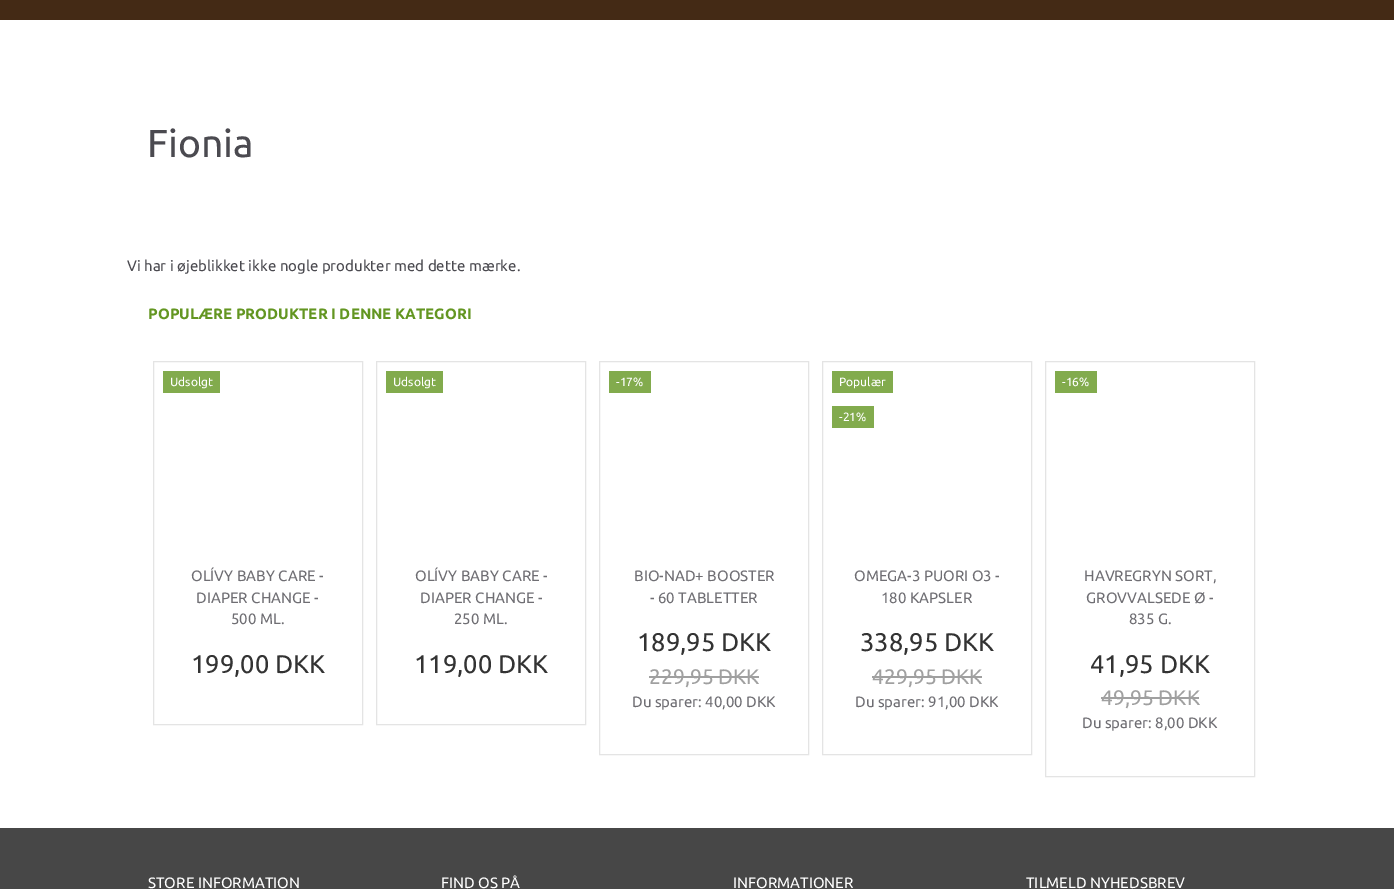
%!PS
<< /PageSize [1394 889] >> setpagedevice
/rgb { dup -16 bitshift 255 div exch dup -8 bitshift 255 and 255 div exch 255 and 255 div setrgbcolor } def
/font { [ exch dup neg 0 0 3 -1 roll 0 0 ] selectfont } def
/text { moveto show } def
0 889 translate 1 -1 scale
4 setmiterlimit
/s1 { /Ubuntu-Regular 39 font 16#4B4A50 rgb } def
/s2 { /Ubuntu-Regular 15 font 16#4B4A50 rgb } def
/s3 { /Ubuntu-Bold 15 font 16#639621 rgb } def
/s4 { /Ubuntu-Regular 12 font 16#FFFFFF rgb } def
/s5 { /Ubuntu-Regular 15 font 16#6F6E73 rgb } def
/s6 { /Ubuntu-Regular 25.5 font 16#333333 rgb } def
/s7 { /Ubuntu-Regular 21 font 16#A0A0A0 rgb } def
/s8 { /Ubuntu-Regular 15 font 16#FFFFFF rgb } def
16#FFFFFF rgb
0 0 1394 889 rectfill
16#442A15 rgb
0 0 1394 20 rectfill
s1
(Fionia) 147 157 text
s2
(Vi har i øjeblikket ikke nogle produkter med dette mærke.) 127 271 text
s3
(POPULÆRE PRODUKTER I DENNE KATEGORI) 148 319 text
16#E4E4E4 rgb
153.5 361.5 209 363 rectstroke
16#82AB4D rgb
163 371 57 22 rectfill
s4
(Udsolgt) 170 386 text
s5
(OLÍVY BABY CARE -) 191 581 text
(DIAPER CHANGE -) 196 603 text
(500 ML.) 231 624 text
s6
(199,00 DKK) 191 673 text
16#E4E4E4 rgb
376.5 361.5 209 363 rectstroke
16#82AB4D rgb
386 371 57 22 rectfill
s4
(Udsolgt) 393 386 text
s5
(OLÍVY BABY CARE -) 415 581 text
(DIAPER CHANGE -) 420 603 text
(250 ML.) 454 624 text
s6
(119,00 DKK) 414 673 text
16#E4E4E4 rgb
599.5 361.5 209 393 rectstroke
16#82AB4D rgb
609 371 42 22 rectfill
s4
(-17%) 616 386 text
s5
(BIO-NAD+ BOOSTER) 634 581 text
(- 60 TABLETTER) 650 603 text
s6
(189,95 DKK) 637 651 text
s7
(229,95 DKK) 649 684 text
649 676 110 2 rectfill
s5
(Du sparer: 40,00 DKK) 632 707 text
16#E4E4E4 rgb
822.5 361.5 209 393 rectstroke
16#82AB4D rgb
832 371 61 22 rectfill
s4
(Populær) 839 386 text
16#82AB4D rgb
832 406 42 22 rectfill
s4
(-21%) 839 421 text
s5
(OMEGA-3 PUORI O3 -) 854 581 text
(180 KAPSLER) 881 603 text
s6
(338,95 DKK) 860 651 text
s7
(429,95 DKK) 872 684 text
872 676 110 2 rectfill
s5
(Du sparer: 91,00 DKK) 855 707 text
16#E4E4E4 rgb
1045.5 361.5 209 415 rectstroke
16#82AB4D rgb
1055 371 42 22 rectfill
s4
(-16%) 1062 386 text
s5
(HAVREGRYN SORT,) 1084 581 text
(GROVVALSEDE Ø -) 1086 603 text
(835 G.) 1129 624 text
s6
(41,95 DKK) 1090 673 text
s7
(49,95 DKK) 1101 705 text
1101 697 98 2 rectfill
s5
(Du sparer: 8,00 DKK) 1082 728 text
16#474747 rgb
0 828 1394 61 rectfill
s8
(STORE INFORMATION) 148 888 text
(FIND OS PÅ) 441 888 text
(INFORMATIONER) 733 888 text
(TILMELD NYHEDSBREV) 1026 888 text
showpage
